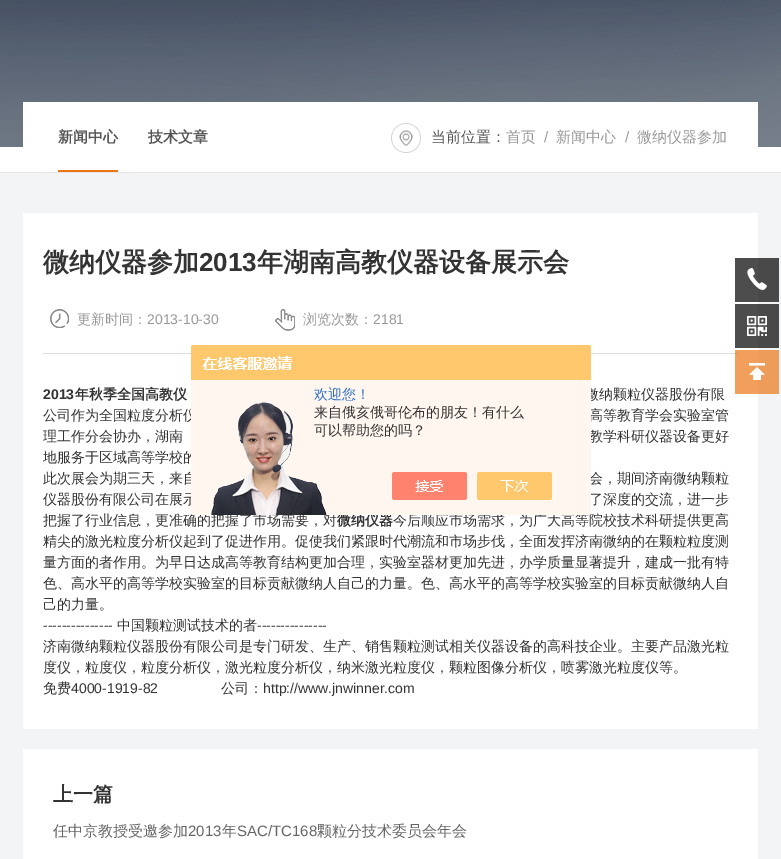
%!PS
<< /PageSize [781 859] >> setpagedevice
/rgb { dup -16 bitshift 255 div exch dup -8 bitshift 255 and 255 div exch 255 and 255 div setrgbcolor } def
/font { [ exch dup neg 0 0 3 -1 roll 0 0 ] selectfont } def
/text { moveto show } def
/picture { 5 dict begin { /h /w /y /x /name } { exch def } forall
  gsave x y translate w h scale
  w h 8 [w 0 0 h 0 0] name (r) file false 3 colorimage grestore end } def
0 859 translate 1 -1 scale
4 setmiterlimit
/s1 { /WenQuanYiZenHei-Bold 15 font 16#555555 rgb } def
/s2 { /WenQuanYiZenHei-Medium 15 font 16#555555 rgb } def
/s3 { /WenQuanYiZenHei-Medium 15 font 16#999999 rgb } def
/s4 { /LiberationSans-Regular 15 font 16#999999 rgb } def
/s5 { /WenQuanYiZenHei-Bold 26 font 16#333333 rgb } def
/s6 { /LiberationSans-Bold 26 font 16#333333 rgb } def
/s7 { /WenQuanYiZenHei-Medium 14 font 16#999999 rgb } def
/s8 { /LiberationSans-Regular 14 font 16#999999 rgb } def
/s9 { /LiberationSans-Bold 14 font 16#333333 rgb } def
/s10 { /WenQuanYiZenHei-Bold 14 font 16#333333 rgb } def
/s11 { /WenQuanYiZenHei-Medium 14 font 16#333333 rgb } def
/s12 { /LiberationSans-Regular 14 font 16#333333 rgb } def
/s13 { /WenQuanYiZenHei-Bold 20 font 16#333333 rgb } def
/s14 { /WenQuanYiZenHei-Medium 15 font 16#666666 rgb } def
/s15 { /LiberationSans-Regular 15 font 16#666666 rgb } def
/s16 { /WenQuanYiZenHei-Medium 14 font 16#2E6EC6 rgb } def
16#FFFFFF rgb
0 0 781 859 rectfill
(pic1.raw) 0 0 781 147 picture
16#E6E6E6 rgb
0 172 781 1 rectfill
16#FFFFFF rgb
23 102 735 45 rectfill
s1
(新闻中心) 58 142 text
16#EC7616 rgb
58 170 60 2 rectfill
s1
(技术文章) 148 142 text
(pic2.raw) 391 123 30 30 picture
s2
(当前位置：) 431 142 text
s3
(首页) 506 142 text
s4
(/) 544 142 text
s3
(新闻中心) 556 142 text
s4
(/) 625 142 text
s3
(微纳仪器参加) 637 142 text
16#F3F4F6 rgb
0 173 781 686 rectfill
16#49494A rgb
758 304 21 44 rectfill
16#EE9C59 rgb
758 350 21 44 rectfill
16#49494A rgb
758 258 21 44 rectfill
16#FFFFFF rgb
23 213 735 516 rectfill
16#4D4D4D rgb
735 304 23 44 rectfill
16#F29F5C rgb
735 350 23 44 rectfill
16#4D4D4D rgb
735 258 23 44 rectfill
s5
(微纳仪器参加) 43 271 text
s6
(2013) 199 271 text
s5
(年湖南高教仪器设备展示会) 257 271 text
16#DDDDDD rgb
43 353 695 1 rectfill
16#E89552 rgb
735 353 3 1 rectfill
(pic3.raw) 50 309 19 19 picture
s7
(更新时间：) 77 324 text
s8
(2013-10-30) 147 324 text
(pic4.raw) 275 309 20 22 picture
s7
(浏览次数：) 303 324 text
s8
(2181) 373 324 text
s9
(2013) 43 399 text
s10
(年秋季全国高教仪) 75 399 text
s11
(微纳颗粒仪器股份有限) 585 399 text
(公司作为全国粒度分析仪) 43 420 text
(高等教育学会实验室管) 589 420 text
(理工作分会协办，湖南) 43 441 text
(教学科研仪器设备更好) 589 441 text
(地服务于区域高等学校的) 43 462 text
(此次展会为期三天，来自) 43 483 text
(会，期间济南微纳颗粒) 589 483 text
(仪器股份有限公司在展示) 43 504 text
(了深度的交流，进一步) 589 504 text
(把握了行业信息，更准确的把握了市场需要，对) 43 525 text
s10
(微纳仪器) 337 525 text
s11
(今后顺应市场需求，为广大高等院校技术科研提供更高) 393 525 text
(精尖的激光粒度分析仪起到了促进作用。促使我们紧跟时代潮流和市场步伐，全面发挥济南微纳的在颗粒粒度测) 43 546 text
(量方面的者作用。为早日达成高等教育结构更加合理，实验室器材更加先进，办学质量显著提升，建成一批有特) 43 567 text
(色、高水平的高等学校实验室的目标贡献微纳人自己的力量。色、高水平的高等学校实验室的目标贡献微纳人自) 43 588 text
(己的力量。) 43 609 text
s12
(---------------) 43 630 text
s11
(中国颗粒测试技术的者) 117 630 text
s12
(---------------) 257 630 text
s11
(济南微纳颗粒仪器股份有限公司是专门研发、生产、销售颗粒测试相关仪器设备的高科技企业。主要产品激光粒) 43 651 text
(度仪，粒度仪，粒度分析仪，激光粒度分析仪，纳米激光粒度仪，颗粒图像分析仪，喷雾激光粒度仪等。) 43 672 text
(免费) 43 693 text
s12
(4000-1919-82) 71 693 text
s11
(公司：) 221 693 text
s12
(http://www.jnwinner.com) 263 693 text
16#FFFFFF rgb
23 749 735 110 rectfill
s13
(上一篇) 53 801 text
s14
(任中京教授受邀参加) 53 836 text
s15
(2013) 188 836 text
s14
(年) 222 836 text
s15
(SAC/TC168) 237 836 text
s14
(颗粒分技术委员会年会) 317 836 text
(pic5.raw) 747 268 20 22 picture
(pic6.raw) 747 316 20 20 picture
(pic7.raw) 749 363 16 17 picture
(pic8.raw) 191 345 400 170 picture
s16
(欢迎您！) 314 399 text
s11
(来自俄亥俄哥伦布的朋友！有什么) 314 417 text
(可以帮助您的吗？) 314 435 text
showpage
